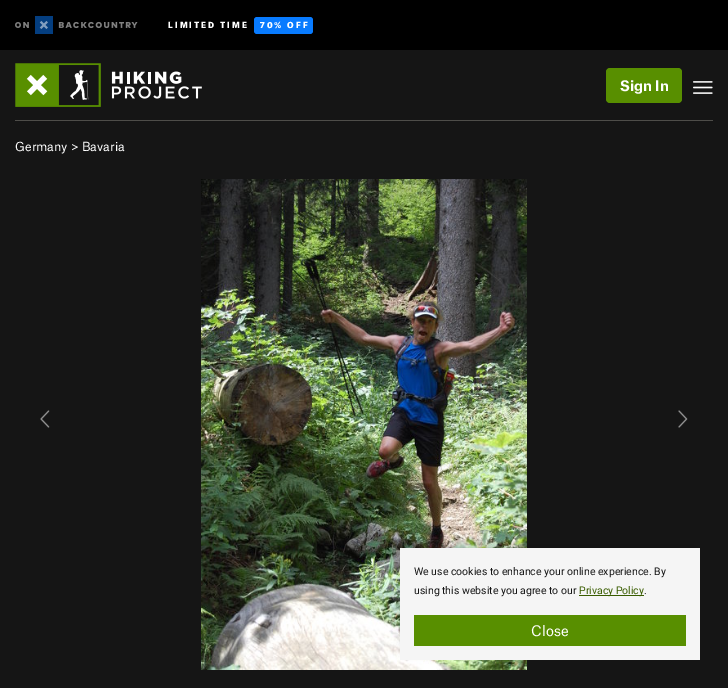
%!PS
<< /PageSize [728 688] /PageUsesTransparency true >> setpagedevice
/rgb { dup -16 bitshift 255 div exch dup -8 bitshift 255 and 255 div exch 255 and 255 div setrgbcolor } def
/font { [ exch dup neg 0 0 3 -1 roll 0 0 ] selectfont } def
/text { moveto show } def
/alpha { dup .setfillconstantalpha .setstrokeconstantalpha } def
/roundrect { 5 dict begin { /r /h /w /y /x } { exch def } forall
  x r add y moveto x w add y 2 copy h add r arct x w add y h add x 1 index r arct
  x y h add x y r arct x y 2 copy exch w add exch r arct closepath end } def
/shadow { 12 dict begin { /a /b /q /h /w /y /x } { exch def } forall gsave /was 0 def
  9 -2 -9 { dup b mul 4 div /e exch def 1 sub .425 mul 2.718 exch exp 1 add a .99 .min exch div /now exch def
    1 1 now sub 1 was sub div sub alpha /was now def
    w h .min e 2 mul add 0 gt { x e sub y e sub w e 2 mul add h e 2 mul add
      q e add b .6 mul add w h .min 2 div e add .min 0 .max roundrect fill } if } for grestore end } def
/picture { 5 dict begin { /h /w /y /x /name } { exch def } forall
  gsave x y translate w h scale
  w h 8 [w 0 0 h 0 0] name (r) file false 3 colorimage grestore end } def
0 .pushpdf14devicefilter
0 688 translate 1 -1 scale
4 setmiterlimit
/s1 { /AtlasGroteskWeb-Bold 14 font 16#FFFFFF rgb } def
/s2 { /AtlasGroteskWeb-Regular 12 font 16#FFFFFF rgb } def
/s3 { /Roboto-Regular 10.5 font 16#151515 rgb } def
/s4 { /Roboto-Regular 10.5 font 16#395C00 rgb } def
/s5 { /AtlasGroteskWeb-Regular 14 font 16#FFFFFF rgb } def
16#151515 rgb
0 0 728 688 rectfill
16#000000 rgb
0 0 728 50 rectfill
(pic1.raw) 15 16 123 18 picture
/AtlasGroteskWeb-Black 8 font
16#FFFFFF rgb
168 28 moveto 2 0 (LIMITED TIME) ashow
16#087BFF rgb
254 17 59 17 3 roundrect fill
16#FFFFFF rgb
260 28 moveto 2 0 (70% OFF) ashow
(pic2.raw) 15 63 187 44 picture
16#588F00 rgb
606 68 76 35 4 roundrect fill
s1
(Sign In) 620 91 text
(pic3.raw) 693 81 20 13 picture
16#4E4D49 rgb
15 120 698 1 rectfill
s2
(Germany > Bavaria) 15 151 text
(pic4.raw) 40 410 10 18 picture
(pic5.raw) 201 179 326 491 picture
(pic6.raw) 678 410 10 18 picture
16#000000 rgb
405 548 290 102 0 5 0.25 shadow
16#F5F5F5 rgb
400 548 300 112 rectfill
s3
(We use cookies to enhance your online experience. By) 414 575 text
(using this website you agree to our) 414 594 text
16#395C00 rgb
579 595 65 1 rectfill
(Privacy Policy) 579 594 text
s3
(.) 644 594 text
16#588F00 rgb
414 615 272 31 rectfill
s5
(Close) 531 636 text
.poppdf14devicefilter showpage
